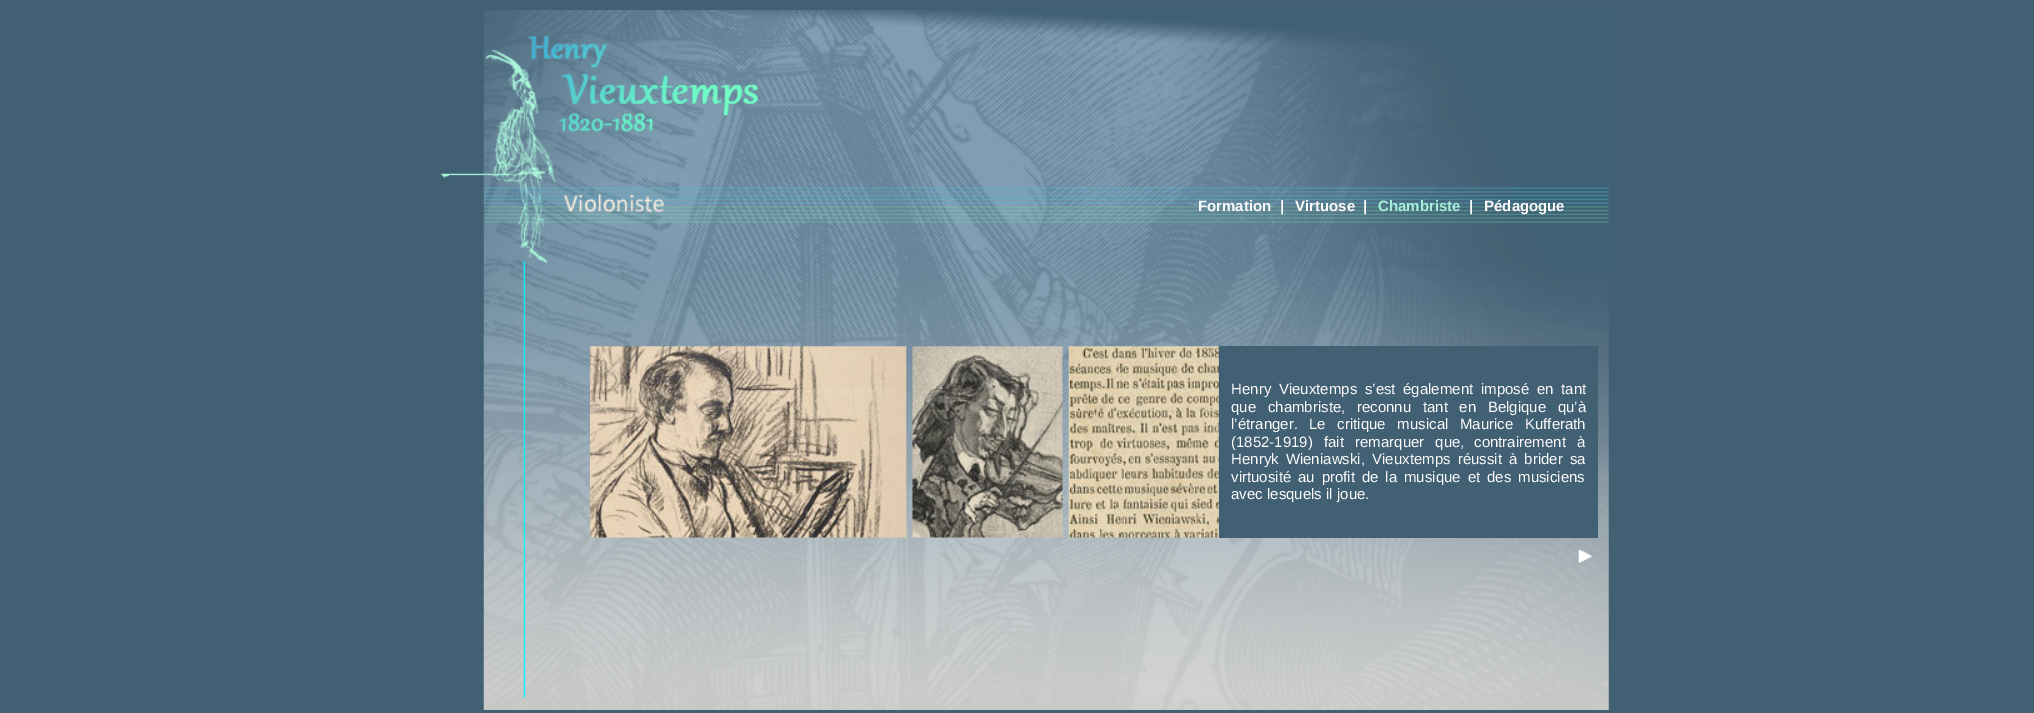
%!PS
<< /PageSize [2034 713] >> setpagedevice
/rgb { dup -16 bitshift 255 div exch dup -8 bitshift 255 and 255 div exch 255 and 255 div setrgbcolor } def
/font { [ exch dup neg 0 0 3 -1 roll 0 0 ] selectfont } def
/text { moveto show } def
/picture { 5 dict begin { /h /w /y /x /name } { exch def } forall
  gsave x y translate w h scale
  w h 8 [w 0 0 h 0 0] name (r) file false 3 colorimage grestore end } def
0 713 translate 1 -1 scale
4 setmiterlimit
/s1 { /LiberationSans-Bold 15 font 16#FDFBFB rgb } def
/s2 { /LiberationSans-Bold 15 font 16#A6EFD9 rgb } def
/s3 { /LiberationSans-Regular 15 font 16#FDFBFB rgb } def
16#416074 rgb
0 0 2034 713 rectfill
(pic1.raw) 441 10 1168 700 picture
(pic2.raw) 528 36 230 96 picture
s1
(Formation) 1198 211 text
(|) 1280 211 text
(Virtuose) 1295 211 text
(|) 1363 211 text
s2
(Chambriste) 1378 211 text
s1
(|) 1469 211 text
(Pédagogue) 1484 211 text
(pic3.raw) 590 346 317 192 picture
(pic4.raw) 912 346 151 192 picture
(pic5.raw) 1068 346 151 192 picture
16#416074 rgb
1219 346 379 192 rectfill
/LiberationSans-Regular 15 font
16#FDFBFB rgb
1231 394 moveto 3.5 0 32 (Henry Vieuxtemps s’est) widthshow
1403 394 moveto 3.5 0 32 (également imposé en tant) widthshow
1231 412 moveto 7.5 0 32 (que chambriste, reconnu tant en Belgique qu’à) widthshow
(l’étranger.) 1231 429 text
1309 429 moveto 7.5 0 32 (Le critique musical Maurice Kufferath) widthshow
1231 447 moveto 7 0 32 (\(1852-1919\) fait remarquer que,) widthshow
1474 447 moveto 7 0 32 (contrairement à) widthshow
1231 464 moveto 3 0 32 (Henryk Wieniawski, Vieuxtemps réussit à brider sa) widthshow
1231 482 moveto 2.75 0 32 (virtuosité au profit de la musique et des musiciens) widthshow
(avec lesquels il joue.) 1231 499 text
(pic6.raw) 1578 550 14 13 picture
showpage
